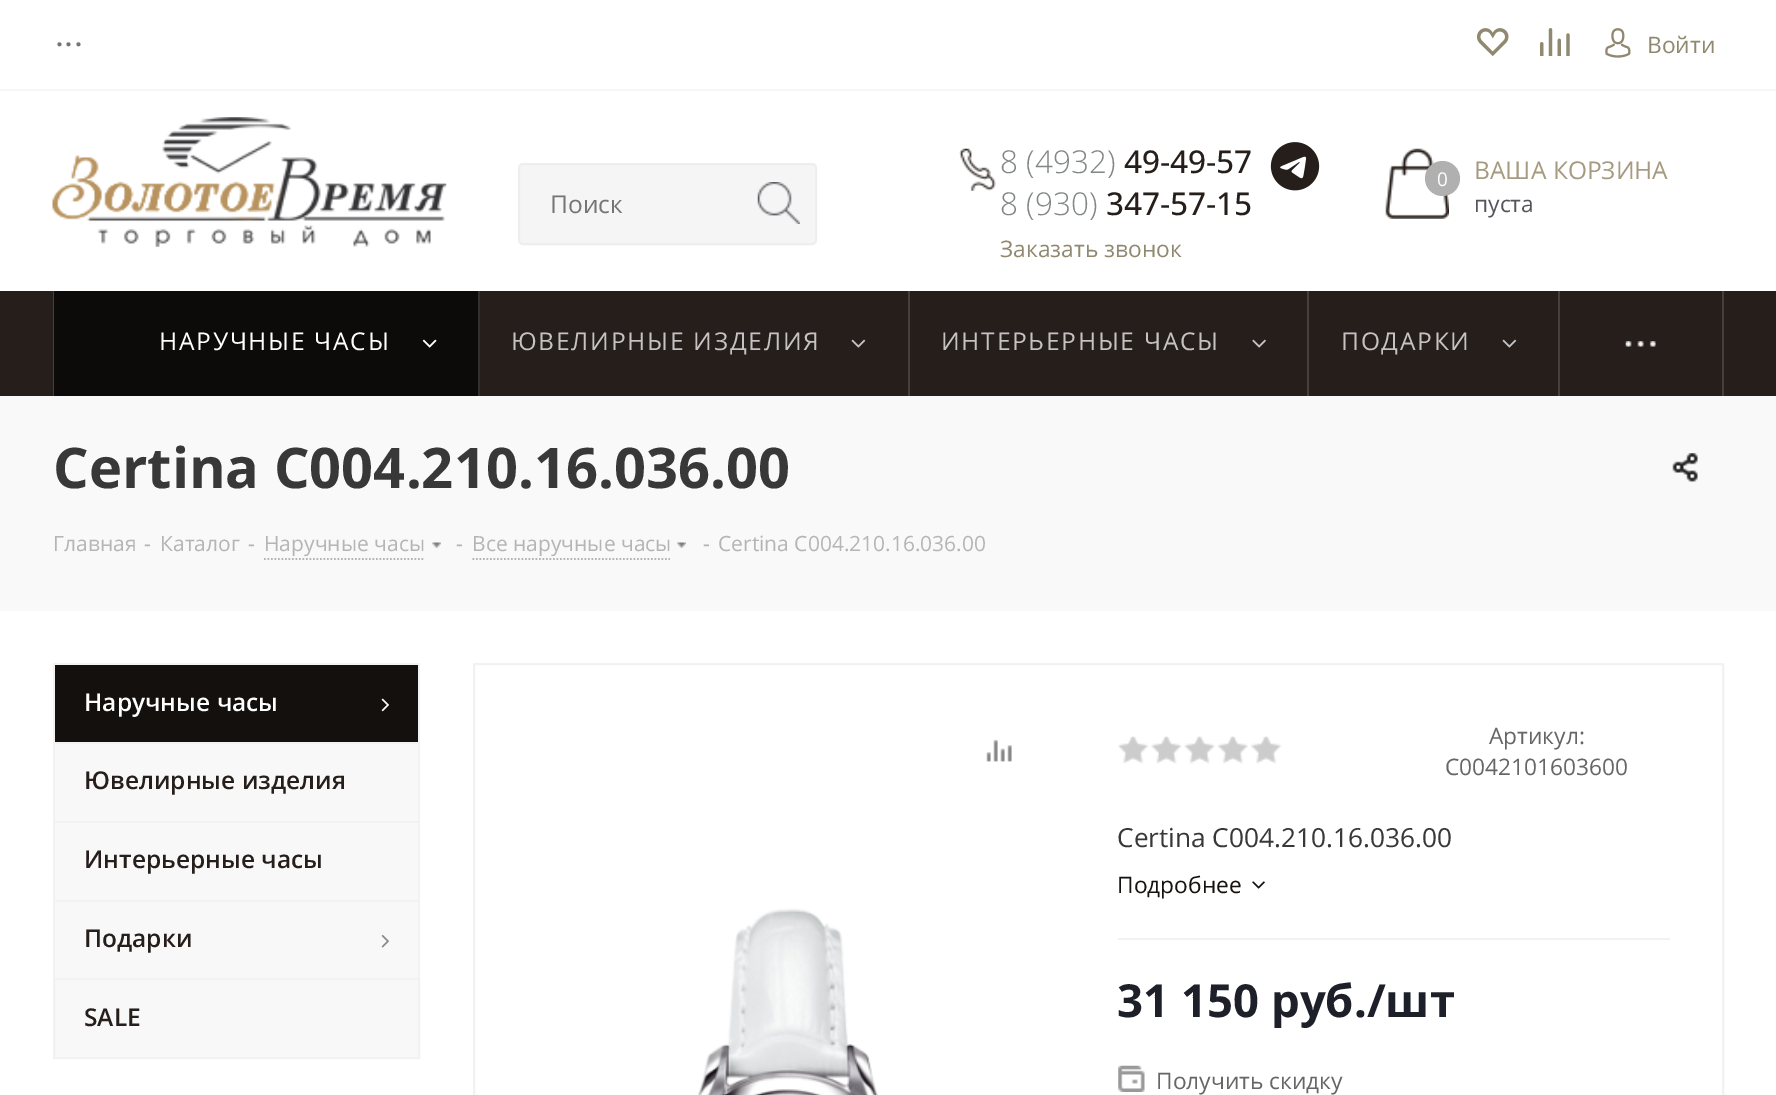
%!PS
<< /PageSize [1776 1095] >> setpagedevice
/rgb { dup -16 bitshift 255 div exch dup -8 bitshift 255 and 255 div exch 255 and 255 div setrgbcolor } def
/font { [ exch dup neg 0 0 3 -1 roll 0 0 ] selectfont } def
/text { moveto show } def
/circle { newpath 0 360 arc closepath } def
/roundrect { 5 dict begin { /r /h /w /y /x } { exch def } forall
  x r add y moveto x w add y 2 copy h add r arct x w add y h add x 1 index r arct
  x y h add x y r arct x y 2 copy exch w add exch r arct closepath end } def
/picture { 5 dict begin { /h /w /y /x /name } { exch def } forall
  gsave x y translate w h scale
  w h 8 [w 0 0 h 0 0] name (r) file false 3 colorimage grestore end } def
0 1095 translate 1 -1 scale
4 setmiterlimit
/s1 { /OpenSans-Regular 22.75 font 16#90896F rgb } def
/s2 { /OpenSans-Regular 24.5 font 16#757575 rgb } def
/s3 { /OpenSans-Light 31.5 font 16#818782 rgb } def
/s4 { /OpenSans-Medium 31.5 font 16#251E1B rgb } def
/s5 { /OpenSans-Regular 24.5 font 16#A69A80 rgb } def
/s6 { /OpenSans-Regular 22.75 font 16#56555B rgb } def
/s7 { /OpenSans-Regular 19 font 16#FFFFFF rgb } def
/s8 { /OpenSans-Bold 56 font 16#383838 rgb } def
/s9 { /OpenSans-Regular 21 font 16#B6B5B5 rgb } def
/s10 { /OpenSans-SemiBold 24.5 font 16#FFFFFF rgb } def
/s11 { /OpenSans-SemiBold 24.5 font 16#251E1B rgb } def
/s12 { /OpenSans-Regular 22.75 font 16#666666 rgb } def
/s13 { /OpenSans-Regular 26.25 font 16#383838 rgb } def
/s14 { /OpenSans-Regular 22.75 font 16#161210 rgb } def
/s15 { /OpenSans-Bold 45.5 font 16#1D2029 rgb } def
16#FFFFFF rgb
0 0 1776 1095 rectfill
16#F6F6F6 rgb
0 89 1776 2 rectfill
/OpenSans-Bold 24.5 font
16#757575 rgb
56 46 moveto 2.5 0 (...) ashow
(pic1.raw) 1477 28 32 28 picture
(pic2.raw) 1540 28 30 28 picture
(pic3.raw) 1605 28 26 30 picture
s1
(Войти) 1647 53 text
(pic4.raw) 52 117 395 130 picture
16#F5F5F5 rgb
519 164 297 80 4 roundrect gsave fill grestore
16#EEEEEE rgb
2 setlinewidth
stroke
s2
(Поиск) 550 213 text
(pic5.raw) 757 182 43 42 picture
(pic6.raw) 959 148 37 43 picture
s3
(8 \(4932\)) 1000 173 text
s4
(49-49-57) 1124 173 text
(pic7.raw) 1270 142 50 49 picture
s3
(8 \(930\)) 1000 215 text
s4
(347-57-15) 1106 215 text
s1
(Заказать звонок) 1000 257 text
(pic8.raw) 1385 148 64 71 picture
s5
(ВАША КОРЗИНА) 1474 179 text
s6
(пуста) 1474 212 text
16#B0B0B0 rgb
1442.5 178.5 17.5 circle fill
s7
(0) 1437 186 text
16#251E1B rgb
0 291 1776 105 rectfill
16#46403D rgb
53 291 1 105 rectfill
16#0D0B0A rgb
54 291 424 105 rectfill
16#31302F rgb
478 291 2 105 rectfill
/OpenSans-Regular 24.5 font
16#FFFFFF rgb
159 350 moveto 1.75 0 (НАРУЧНЫЕ ЧАСЫ) ashow
(pic9.raw) 422 339 15 9 picture
16#46403D rgb
908 291 2 105 rectfill
16#C4C2C3 rgb
511 350 moveto 1.75 0 (ЮВЕЛИРНЫЕ ИЗДЕЛИЯ) ashow
(pic10.raw) 851 339 15 9 picture
16#46403D rgb
1307 291 2 105 rectfill
16#C4C2C3 rgb
941 350 moveto 1.75 0 (ИНТЕРЬЕРНЫЕ ЧАСЫ) ashow
(pic11.raw) 1252 339 14 9 picture
16#46403D rgb
1558 291 2 105 rectfill
16#C4C2C3 rgb
1341 350 moveto 1.75 0 (ПОДАРКИ) ashow
(pic10.raw) 1502 339 15 9 picture
16#46403D rgb
1722 291 2 105 rectfill
(pic12.raw) 1625 341 31 6 picture
16#F9F9F9 rgb
0 396 1776 215 rectfill
s8
(Certina C004.210.16.036.00) 53 488 text
(pic13.raw) 1672 453 26 29 picture
s9
(Главная) 53 551 text
(-) 144 551 text
(Каталог) 160 551 text
(-) 248 551 text
(Наручные часы) 264 551 text
16#B4B4B4 rgb
1.8 setlinewidth
[1.75 1.75] 0 setdash
264 559 moveto 425 559 lineto stroke
(pic14.raw) 432 542 9 6 picture
s9
(-) 456 551 text
(Все наручные часы) 472 551 text
16#B4B4B4 rgb
472.5 559 moveto 670 559 lineto stroke
(pic14.raw) 677 542 9 6 picture
s9
(-) 703 551 text
(Certina C004.210.16.036.00) 718 551 text
16#13100E rgb
55 665 363 77 rectfill
16#F2F2F2 rgb
53 663 367 2 rectfill
418 663 2 79 rectfill
53 663 2 79 rectfill
s10
(Наручные часы) 84 711 text
(pic15.raw) 381 698 8 14 picture
16#F8F8F9 rgb
55 744 363 77 rectfill
16#F2F2F2 rgb
53 742 367 2 rectfill
418 742 2 79 rectfill
53 742 2 79 rectfill
s11
(Ювелирные изделия) 84 789 text
16#F8F8F9 rgb
55 823 363 77 rectfill
16#F2F2F2 rgb
53 821 367 2 rectfill
418 821 2 79 rectfill
53 821 2 79 rectfill
s11
(Интерьерные часы) 84 868 text
16#F8F8F9 rgb
55 902 363 76 rectfill
16#F2F2F2 rgb
53 900 367 2 rectfill
418 900 2 78 rectfill
53 900 2 78 rectfill
s11
(Подарки) 84 947 text
(pic16.raw) 381 934 8 14 picture
16#F8F8F9 rgb
54 979 moveto 419 979 lineto 419 1058 lineto 54 1058 lineto closepath gsave fill grestore
16#F2F2F2 rgb
2 setlinewidth
[] 0 setdash
stroke
s11
(SALE) 84 1026 text
16#F2F2F2 rgb
474 664 1249 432 rectstroke
(pic17.raw) 986 739 26 23 picture
(pic18.raw) 698 908 180 187 picture
1118 938 552 2 rectfill
(pic19.raw) 1118 736 31 28 picture
(pic20.raw) 1151 736 31 28 picture
(pic21.raw) 1184 736 31 28 picture
(pic22.raw) 1218 736 30 28 picture
(pic23.raw) 1251 736 31 28 picture
s12
(Артикул:) 1489 744 text
(C0042101603600) 1445 775 text
s13
(Certina C004.210.16.036.00) 1117 847 text
s14
(Подробнее) 1117 893 text
(pic24.raw) 1252 881 13 8 picture
s15
(31 150 руб./шт) 1117 1017 text
(pic25.raw) 1118 1065 27 27 picture
s12
(Получить скидку) 1156 1089 text
showpage
